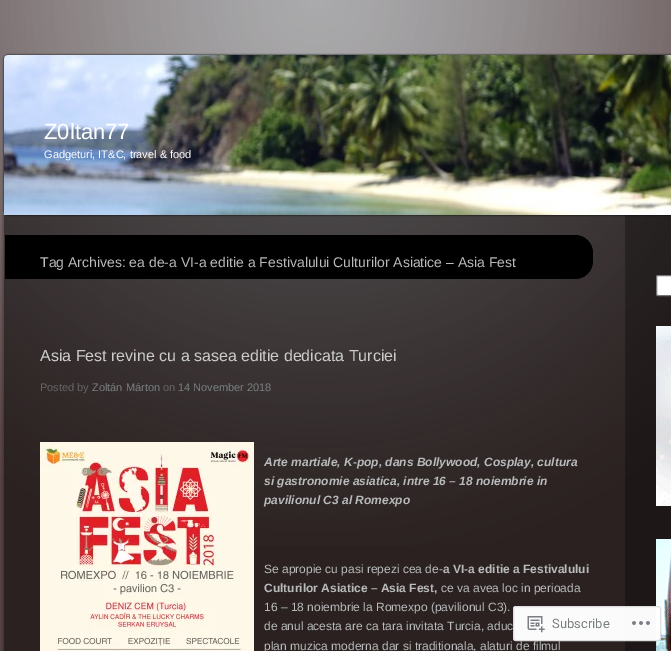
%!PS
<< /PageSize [671 651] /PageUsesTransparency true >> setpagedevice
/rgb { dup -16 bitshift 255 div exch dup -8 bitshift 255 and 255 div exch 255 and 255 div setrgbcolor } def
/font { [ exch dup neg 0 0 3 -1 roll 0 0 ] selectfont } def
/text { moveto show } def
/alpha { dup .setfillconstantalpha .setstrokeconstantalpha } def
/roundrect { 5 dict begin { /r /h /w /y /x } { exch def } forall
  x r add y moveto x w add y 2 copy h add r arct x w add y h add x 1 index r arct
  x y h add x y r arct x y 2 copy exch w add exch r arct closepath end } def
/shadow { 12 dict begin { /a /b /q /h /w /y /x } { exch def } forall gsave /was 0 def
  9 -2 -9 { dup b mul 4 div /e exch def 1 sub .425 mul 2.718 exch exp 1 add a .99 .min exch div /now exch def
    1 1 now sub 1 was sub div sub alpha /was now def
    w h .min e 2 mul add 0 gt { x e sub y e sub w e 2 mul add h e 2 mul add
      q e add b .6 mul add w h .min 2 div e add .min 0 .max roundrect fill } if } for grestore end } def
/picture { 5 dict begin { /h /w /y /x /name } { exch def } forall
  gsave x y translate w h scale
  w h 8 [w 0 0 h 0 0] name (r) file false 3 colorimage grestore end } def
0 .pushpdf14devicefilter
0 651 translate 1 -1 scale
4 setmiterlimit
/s1 { /LiberationSans-Regular 22 font 16#FFFFFF rgb } def
/s2 { /LiberationSans-Regular 11 font 16#FFFFFF rgb } def
/s3 { /LiberationSans-Regular 14 font 16#B8BABB rgb } def
/s4 { /LiberationSans-Regular 16 font 16#CCCCCC rgb } def
/s5 { /LiberationSans-Regular 11 font 16#666666 rgb } def
/s6 { /LiberationSans-Regular 11 font 16#797F80 rgb } def
/s7 { /LiberationSans-BoldItalic 12 font 16#B8BABB rgb } def
/s8 { /LiberationSans-Regular 12 font 16#B8BABB rgb } def
/s9 { /LiberationSans-Bold 12 font 16#B8BABB rgb } def
/s10 { /Roboto-Regular 13 font 16#797F80 rgb } def
16#574242 rgb
0 0 671 651 rectfill
(pic1.raw) 0 0 671 546 picture
(pic3.raw) 1 215 670 436 picture
16#000000 rgb
4 55 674 160 4 1 1 shadow
(pic2.raw) 4 55 667 160 picture
s1
(Z0ltan77) 44 139 text
s2
(Gadgeturi, IT&C, travel & food) 44 158 text
16#000000 rgb
5 235 moveto 575 235 lineto 585 235 593 243 593 253 curveto 593 261 lineto 593 271 585 279 575 279 curveto 5 279 lineto closepath fill
s3
(Tag Archives: ea de-a VI-a editie a Festivalului Culturilor Asiatice – Asia Fest) 40 267 text
s4
(Asia Fest revine cu a sasea editie dedicata Turciei) 40 361 text
s5
(Posted by) 40 391 text
s6
(Zoltán Márton) 92 391 text
s5
(on) 163 391 text
s6
(14 November 2018) 178 391 text
(pic4.raw) 40 442 214 209 picture
s7
(Arte martiale, K-pop, dans Bollywood, Cosplay, cultura) 264 466 text
(si gastronomie asiatica, intre 16 – 18 noiembrie in) 264 485 text
(pavilionul C3 al Romexpo) 264 504 text
s8
(Se apropie cu pasi repezi cea de-) 264 573 text
s9
(a VI-a editie a Festivalului) 443 573 text
(Culturilor Asiatice – Asia Fest,) 264 592 text
s8
(ce va avea loc in perioada) 441 592 text
(16 – 18 noiembrie la Romexpo \(pavilionul C3\).) 264 611 text
(de anul acesta are ca tara invitata Turcia, aduc) 264 630 text
(plan muzica moderna dar si traditionala, alaturi de filmul) 264 650 text
16#FFFFFF rgb
656.5 275.5 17 20 1.5 roundrect gsave fill grestore
16#767676 rgb
stroke
(pic5.raw) 656 326 15 180 picture
(pic6.raw) 656 539 15 112 picture
0.98 alpha
16#FFFFFF rgb
513 606 148 35 3 roundrect fill
16#DCDCDE rgb
513.5 606.5 147 34 2.5 roundrect stroke
1 alpha
(pic7.raw) 527 616 18 17 picture
s10
(Subscribe) 552 628 text
(pic8.raw) 632 621 18 4 picture
.poppdf14devicefilter showpage
